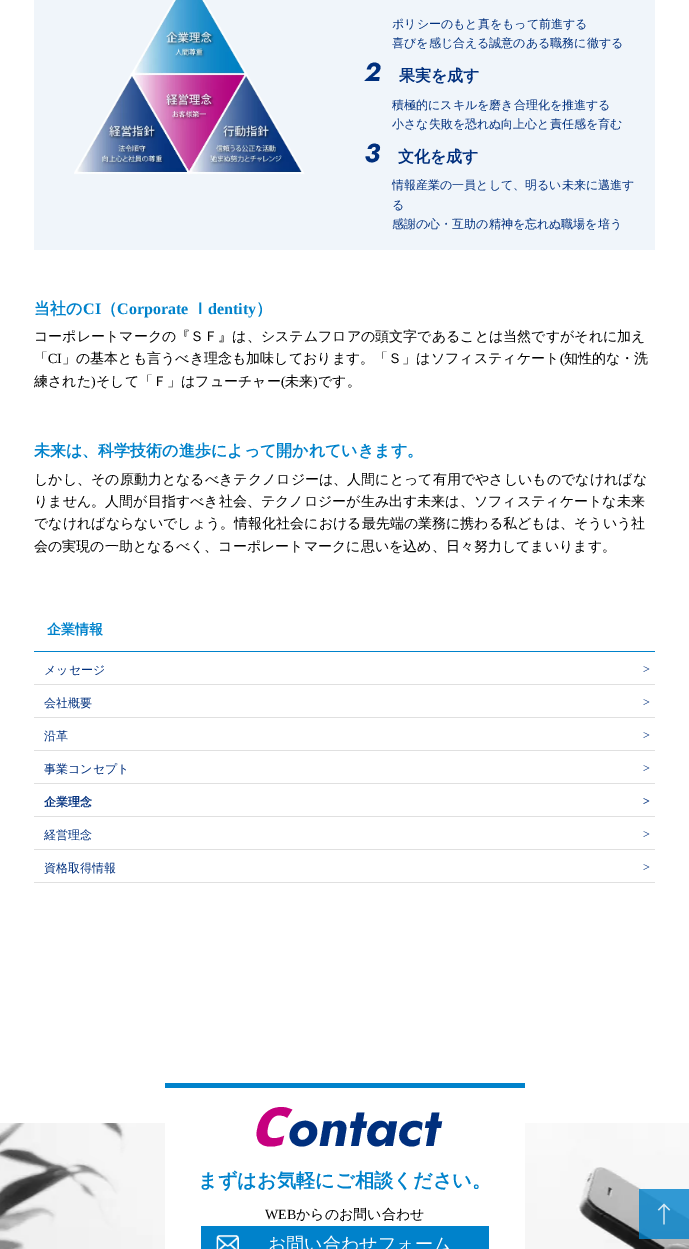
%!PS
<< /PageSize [689 1249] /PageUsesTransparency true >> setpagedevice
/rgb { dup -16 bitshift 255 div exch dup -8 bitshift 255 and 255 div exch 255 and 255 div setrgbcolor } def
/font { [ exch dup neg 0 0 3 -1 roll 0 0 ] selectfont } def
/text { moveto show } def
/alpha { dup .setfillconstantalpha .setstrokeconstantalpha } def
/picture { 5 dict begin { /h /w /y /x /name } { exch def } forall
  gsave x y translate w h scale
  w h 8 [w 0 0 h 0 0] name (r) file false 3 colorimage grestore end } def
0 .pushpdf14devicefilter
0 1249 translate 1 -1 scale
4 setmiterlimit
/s1 { /WenQuanYiZenHei-Medium 12 font 16#002F7D rgb } def
/s2 { /Jost-BoldItalic 26 font 16#002F7D rgb } def
/s3 { /WenQuanYiZenHei-Bold 16 font 16#002F7D rgb } def
/s4 { /WenQuanYiZenHei-Bold 16 font 16#0082CB rgb } def
/s5 { /LiberationSerif-Bold 16 font 16#0082CB rgb } def
/s6 { /WenQuanYiZenHei-Medium 14 font 16#000000 rgb } def
/s7 { /LiberationSerif-Regular 14 font 16#000000 rgb } def
/s8 { /WenQuanYiZenHei-Bold 14 font 16#0082CB rgb } def
/s9 { /LiberationSerif-Regular 12 font 16#002F7D rgb } def
/s10 { /WenQuanYiZenHei-Bold 12 font 16#002F7D rgb } def
/s11 { /LiberationSerif-Bold 12 font 16#002F7D rgb } def
/s12 { /NotoSans-BlackItalic 54 font 16#C6007F rgb } def
/s13 { /Jost-BoldItalic 54 font 16#002F7D rgb } def
/s14 { /WenQuanYiZenHei-Bold 19.25 font 16#0082CB rgb } def
/s15 { /WenQuanYiZenHei-Medium 18 font 16#FFFFFF rgb } def
16#FFFFFF rgb
0 0 689 1249 rectfill
16#F0F5FA rgb
34 0 621 250 rectfill
(pic1.raw) 74 0 231 175 picture
s1
(ポリシーのもと真をもって前進する) 392 28 text
(喜びを感じ合える誠意のある職務に徹する) 392 47 text
s2
(2) 364 81 text
s3
(果実を成す) 399 81 text
s1
(積極的にスキルを磨き合理化を推進する) 392 109 text
(小さな失敗を恐れぬ向上心と責任感を育む) 392 128 text
s2
(3) 364 162 text
s3
(文化を成す) 398 162 text
s1
(情報産業の一員として、明るい未来に邁進す) 392 189 text
(る) 392 209 text
(感謝の心・互助の精神を忘れぬ職場を培う) 392 228 text
s4
(当社の) 34 314 text
s5
(CI) 83 314 text
s4
(（) 101 314 text
s5
(Corporate) 117 314 text
s4
(Ｉ) 192 314 text
s5
(dentity) 208 314 text
s4
(）) 256 314 text
s6
(コーポレートマークの『ＳＦ』は、システムフロアの頭文字であることは当然ですがそれに加え) 34 341 text
(「) 34 363 text
s7
(CI) 48 363 text
s6
(」の基本とも言うべき理念も加味しております。「Ｓ」はソフィスティケート) 62 363 text
s7
(\() 560 363 text
s6
(知性的な・洗) 564 363 text
(練された) 34 386 text
s7
(\)) 91 386 text
s6
(そして「Ｆ」はフューチャー) 96 386 text
s7
(\() 281 386 text
s6
(未来) 285 386 text
s7
(\)) 313 386 text
s6
(です。) 318 386 text
s4
(未来は、科学技術の進歩によって開かれていきます。) 34 456 text
s6
(しかし、その原動力となるべきテクノロジーは、人間にとって有用でやさしいものでなければな) 34 484 text
(りません。人間が目指すべき社会、テクノロジーが生み出す未来は、ソフィスティケートな未来) 34 506 text
(でなければならないでしょう。情報化社会における最先端の業務に携わる私どもは、そういう社) 34 528 text
(会の実現の一助となるべく、コーポレートマークに思いを込め、日々努力してまいります。) 34 551 text
16#0082CB rgb
34 651 621 1 rectfill
s8
(企業情報) 47 634 text
16#E0E0E0 rgb
34 684 621 1 rectfill
s1
(メッセージ) 44 674 text
s9
(>) 643 673 text
16#E0E0E0 rgb
34 717 621 1 rectfill
s1
(会社概要) 44 707 text
s9
(>) 643 706 text
16#E0E0E0 rgb
34 750 621 1 rectfill
s1
(沿革) 44 740 text
s9
(>) 643 739 text
16#E0E0E0 rgb
34 783 621 1 rectfill
s1
(事業コンセプト) 44 773 text
s9
(>) 643 772 text
16#E0E0E0 rgb
34 816 621 1 rectfill
s10
(企業理念) 44 806 text
s11
(>) 643 805 text
16#E0E0E0 rgb
34 849 621 1 rectfill
s1
(経営理念) 44 839 text
s9
(>) 643 838 text
16#E0E0E0 rgb
34 882 621 1 rectfill
s1
(資格取得情報) 44 872 text
s9
(>) 643 871 text
(pic2.raw) 0 1123 689 126 picture
16#FFFFFF rgb
165 1123 360 126 rectfill
16#0082CB rgb
165 1083 360 5 rectfill
s12
(C) 250 1146 text
s13
(ontact) 287 1146 text
s14
(まずはお気軽にご相談ください。) 198 1187 text
s7
(WEB) 265 1219 text
s6
(からのお問い合わせ) 296 1219 text
16#0082CB rgb
201 1226 288 23 rectfill
(pic3.raw) 216 1235 23 14 picture
s15
(お問い合わせフォーム) 268 1250 text
0.8 alpha
16#0082CB rgb
639 1189 50 50 rectfill
1 alpha
(pic4.raw) 657 1203 14 22 picture
.poppdf14devicefilter showpage
